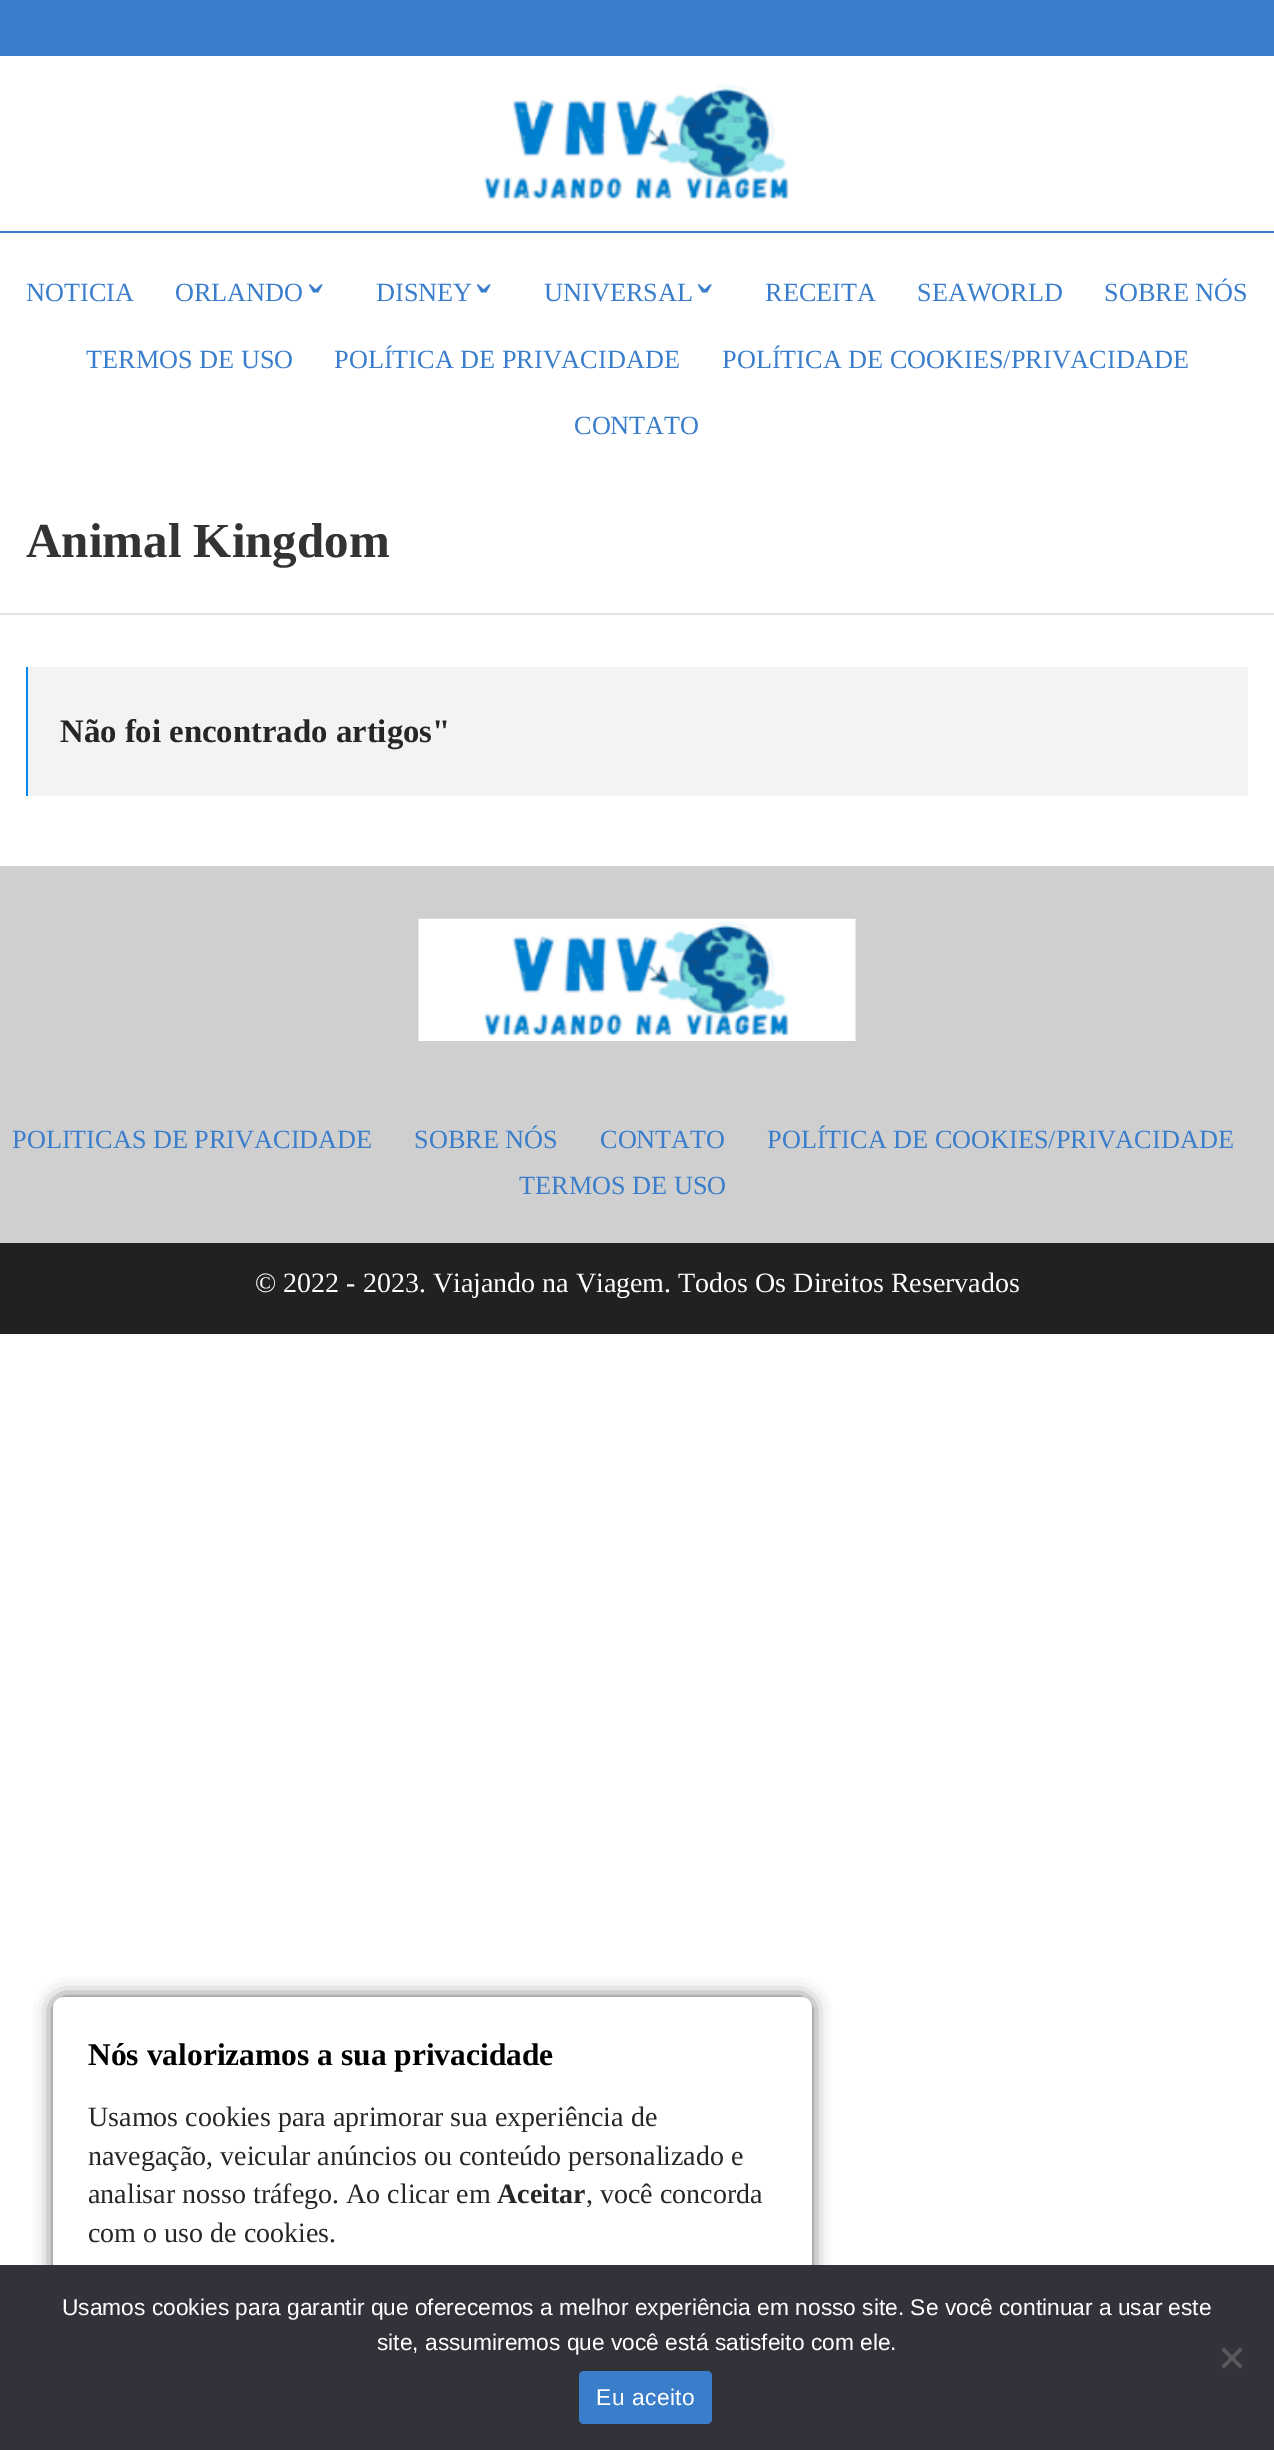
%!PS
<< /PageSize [1274 2450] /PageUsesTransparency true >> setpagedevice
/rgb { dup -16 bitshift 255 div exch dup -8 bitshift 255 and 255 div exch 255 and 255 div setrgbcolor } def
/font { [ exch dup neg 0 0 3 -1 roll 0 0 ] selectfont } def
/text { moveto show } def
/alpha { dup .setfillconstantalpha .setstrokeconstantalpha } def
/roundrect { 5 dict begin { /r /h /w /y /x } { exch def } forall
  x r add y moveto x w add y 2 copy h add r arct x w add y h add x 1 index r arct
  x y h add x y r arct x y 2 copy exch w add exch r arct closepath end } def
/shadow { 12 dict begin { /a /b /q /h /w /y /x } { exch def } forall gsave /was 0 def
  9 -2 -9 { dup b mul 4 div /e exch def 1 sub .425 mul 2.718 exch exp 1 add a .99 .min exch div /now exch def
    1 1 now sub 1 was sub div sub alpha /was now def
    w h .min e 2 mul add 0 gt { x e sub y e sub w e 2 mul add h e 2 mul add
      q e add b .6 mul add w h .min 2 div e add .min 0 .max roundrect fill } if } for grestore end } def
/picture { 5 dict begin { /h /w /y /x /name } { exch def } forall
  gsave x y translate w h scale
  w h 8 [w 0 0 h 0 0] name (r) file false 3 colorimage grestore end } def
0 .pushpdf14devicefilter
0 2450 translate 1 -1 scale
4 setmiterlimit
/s1 { /LiberationSerif-Regular 26.25 font 16#397DCB rgb } def
/s2 { /LiberationSerif-Regular 70 font 16#397DCB rgb } def
/s3 { /LiberationSerif-Bold 49 font 16#333333 rgb } def
/s4 { /LiberationSerif-Bold 32.75 font 16#262626 rgb } def
/s5 { /LiberationSerif-Regular 28 font 16#FFFFFF rgb } def
/s6 { /LiberationSerif-Bold 31.5 font 16#000000 rgb } def
/s7 { /LiberationSerif-Regular 28 font 16#262626 rgb } def
/s8 { /LiberationSerif-Bold 28 font 16#262626 rgb } def
/s9 { /LiberationSans-Regular 22.75 font 16#FFFFFF rgb } def
16#FFFFFF rgb
0 0 1274 2450 rectfill
16#397DCB rgb
0 0 1274 56 rectfill
(pic1.raw) 484 84 306 116 picture
0 231 1274 2 rectfill
s1
(NOTICIA) 26 301 text
(ORLANDO) 175 301 text
s2
(˯) 304 280 text
s1
(DISNEY) 376 301 text
s2
(˯) 472 280 text
s1
(UNIVERSAL) 544 301 text
s2
(˯) 693 280 text
s1
(RECEITA) 765 301 text
(SEAWORLD) 917 301 text
(SOBRE NÓS) 1104 301 text
(TERMOS DE USO) 86 368 text
(POLÍTICA DE PRIVACIDADE) 334 368 text
(POLÍTICA DE COOKIES/PRIVACIDADE) 722 368 text
(CONTATO) 574 434 text
16#E3E3E3 rgb
0 613 1274 2 rectfill
s3
(Animal Kingdom) 26 557 text
16#F3F3F3 rgb
28 667 1220 129 rectfill
16#0487EF rgb
26 667 2 129 rectfill
s4
(Não foi encontrado artigos") 60 742 text
16#CFCFCF rgb
0 866 1274 377 rectfill
(pic2.raw) 418 918 438 123 picture
s1
(POLITICAS DE PRIVACIDADE) 12 1148 text
(SOBRE NÓS) 414 1148 text
(CONTATO) 600 1148 text
(POLÍTICA DE COOKIES/PRIVACIDADE) 767 1148 text
(TERMOS DE USO) 519 1194 text
16#212121 rgb
0 1243 1274 91 rectfill
s5
(© 2022 - 2023. Viajando na Viagem. Todos Os Direitos Reservados) 255 1292 text
16#5A5A5A rgb
53 1997 759 401 11 9 1 shadow
16#FFFFFF rgb
53 1997 759 401 11 roundrect fill
s6
(Nós valorizamos a sua privacidade) 88 2065 text
s7
(Usamos cookies para aprimorar sua experiência de) 88 2126 text
(navegação, veicular anúncios ou conteúdo personalizado e) 88 2165 text
(analisar nosso tráfego. Ao clicar em) 88 2203 text
s8
(Aceitar) 497 2203 text
s7
(, você concorda) 586 2203 text
(com o uso de cookies.) 88 2242 text
16#32323A rgb
0 2265 1274 185 rectfill
s9
(Usamos cookies para garantir que oferecemos a melhor experiência em nosso site. Se você continuar a usar este) 62 2315 text
(site, assumiremos que você está satisfeito com ele.) 377 2350 text
16#59595D rgb
1240 2347.5 moveto 1242.5 2350 lineto 1224 2368.5 lineto 1221.5 2366 lineto closepath fill
1221.5 2350 moveto 1224 2347.5 lineto 1242.5 2366 lineto 1240 2368.5 lineto closepath fill
16#397DCB rgb
579 2371 133 53 5 roundrect fill
16#FFFFFF rgb
596 2405 moveto 0.5 0 (Eu aceito) ashow
.poppdf14devicefilter showpage
